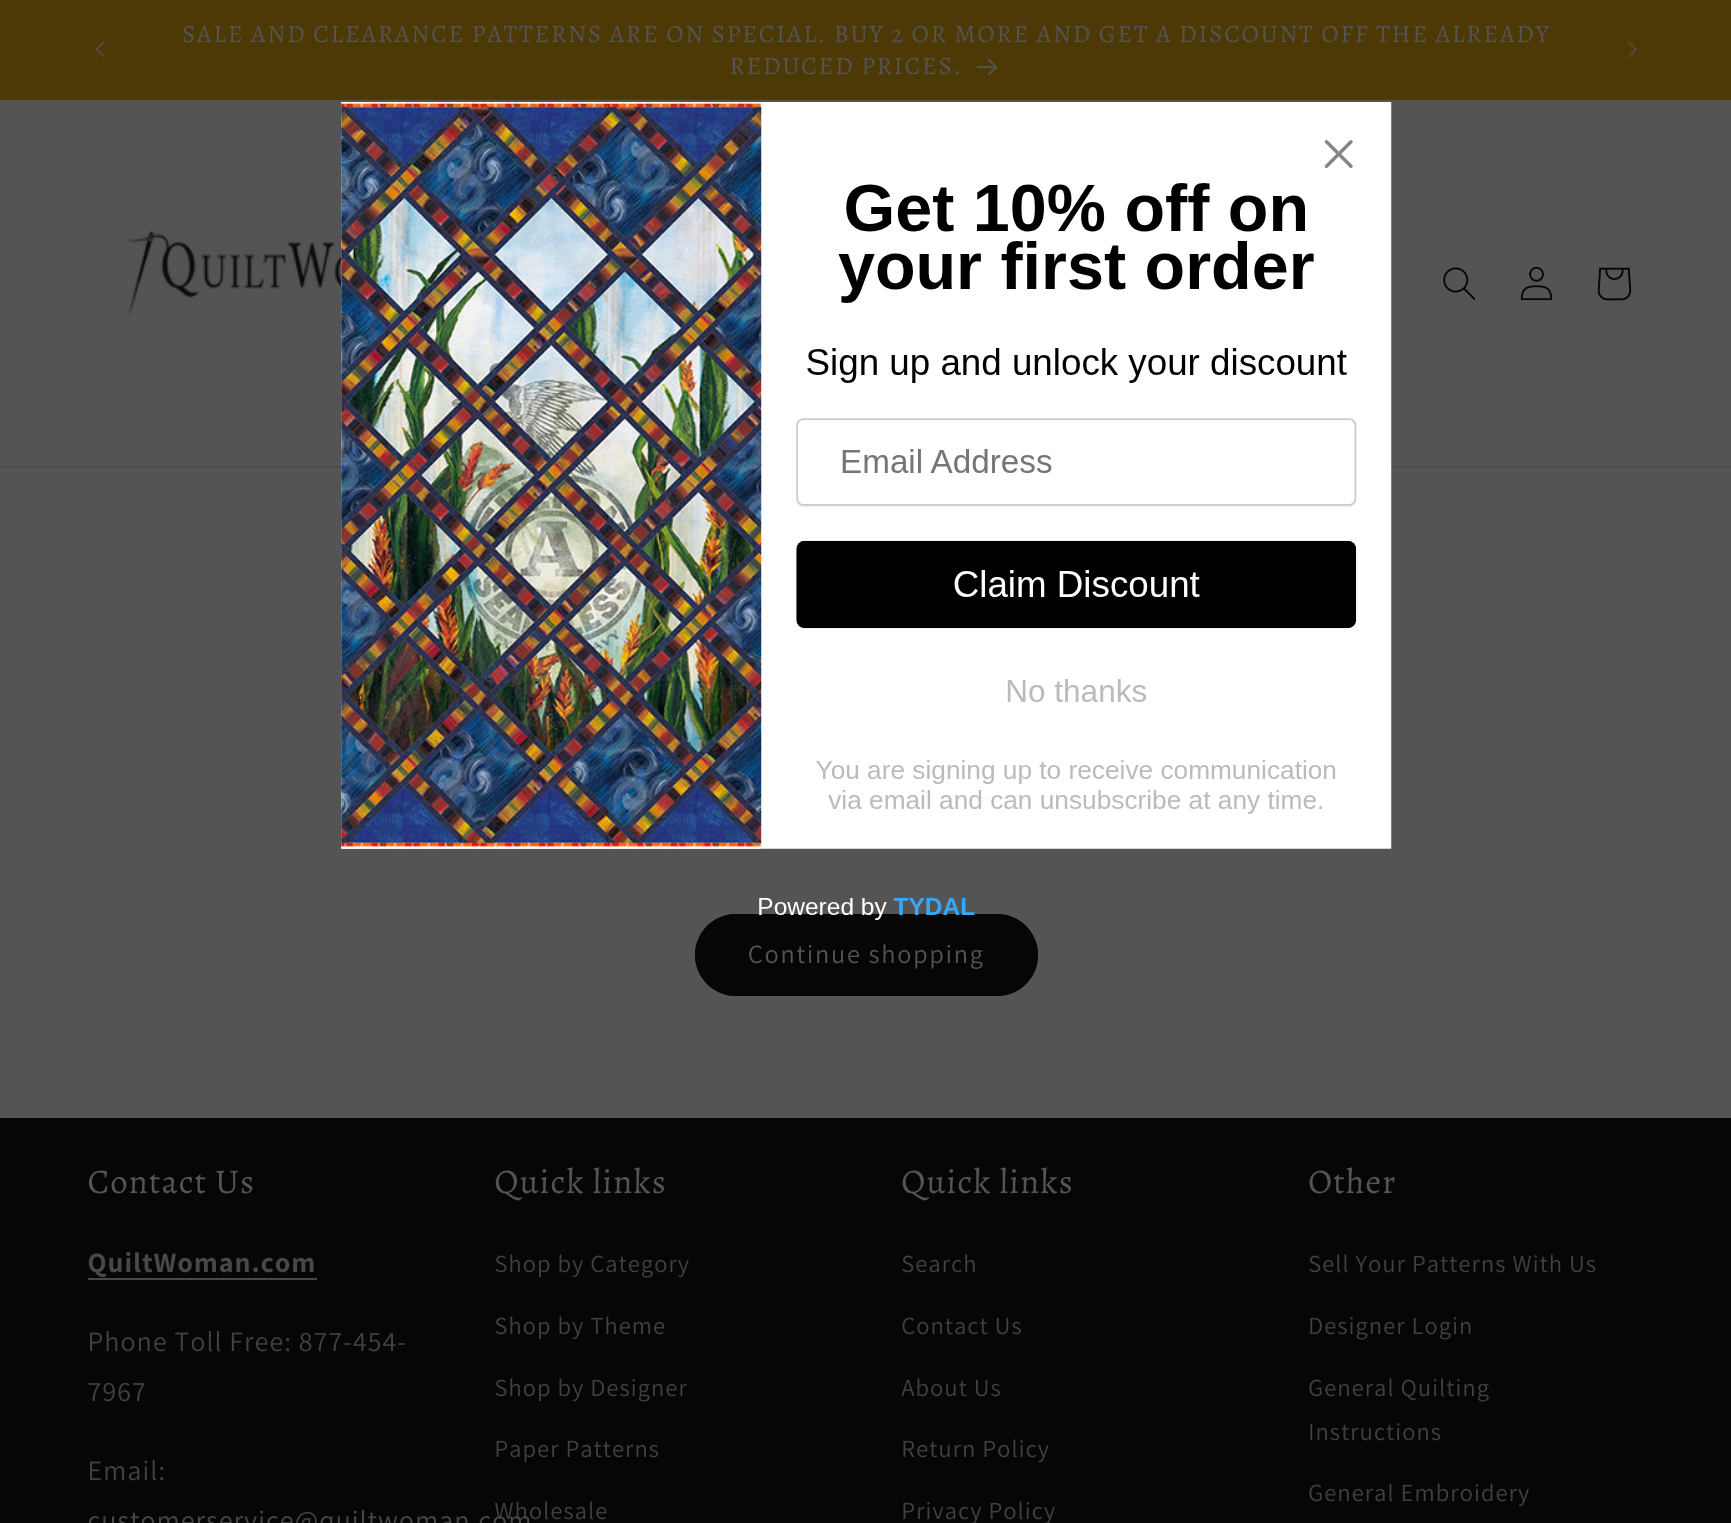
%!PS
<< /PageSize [1731 1523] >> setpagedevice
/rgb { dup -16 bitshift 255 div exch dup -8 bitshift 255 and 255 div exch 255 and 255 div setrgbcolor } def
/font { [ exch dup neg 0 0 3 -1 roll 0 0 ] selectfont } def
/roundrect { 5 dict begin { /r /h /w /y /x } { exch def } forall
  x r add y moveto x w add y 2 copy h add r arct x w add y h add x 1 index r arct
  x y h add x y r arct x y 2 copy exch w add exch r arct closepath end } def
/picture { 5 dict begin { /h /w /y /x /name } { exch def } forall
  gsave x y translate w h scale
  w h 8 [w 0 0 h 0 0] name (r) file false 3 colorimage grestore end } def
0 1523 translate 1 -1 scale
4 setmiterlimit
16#FFFFFF rgb
0 0 1731 1523 rectfill
16#E8AD0F rgb
0 0 1731 98 rectfill
16#EAB422 rgb
0 98 1731 2 rectfill
(pic2.raw) 95 41 10 17 picture
/Alegreya-Regular 25.03 font
16#FFFFFF rgb
182 42 moveto 1.75 0 (SALE AND CLEARANCE PATTERNS ARE ON SPECIAL. BUY 2 OR MORE AND GET A DISCOUNT OFF THE ALREADY) ashow
729 74 moveto 1.75 0 (REDUCED PRICES.) ashow
(pic3.raw) 977 58 21 17 picture
(pic4.raw) 1628 41 9 17 picture
16#ECECEC rgb
0 466 1731 2 rectfill
(pic5.raw) 128 230 214 86 picture
(pic6.raw) 1443 267 33 33 picture
(pic7.raw) 1520 266 33 35 picture
(pic8.raw) 1597 267 35 34 picture
16#121212 rgb
695 914 343 82 41 roundrect fill
2 setlinewidth
696 915 341 80 40 roundrect stroke
/Assistant-Regular 26.25 font
16#FFFFFF rgb
748 963 moveto 1.75 0 (Continue shopping) ashow
16#121212 rgb
0 1118 1731 405 rectfill
/Alegreya-Regular 34.5 font
16#FFFFFF rgb
88 1193 moveto 1.25 0 (Contact Us) ashow
/Assistant-Bold 28 font
16#DBDBDB rgb
88 1272 moveto 1.05 0 (QuiltWoman.com) ashow
88 1278 229 2 rectfill
/Assistant-Regular 28 font
16#C4C4C4 rgb
88 1351 moveto 1.05 0 (Phone Toll Free: 877-454-) ashow
88 1401 moveto 1.05 0 (7967) ashow
88 1480 moveto 1.05 0 (Email:) ashow
/Alegreya-Regular 34.5 font
16#FFFFFF rgb
494 1193 moveto 1.25 0 (Quick links) ashow
/Assistant-Regular 24.5 font
16#C4C4C4 rgb
494 1272 moveto 1.05 0 (Shop by Category) ashow
494 1334 moveto 1.05 0 (Shop by Theme) ashow
494 1396 moveto 1.05 0 (Shop by Designer) ashow
494 1457 moveto 1.05 0 (Paper Patterns) ashow
494 1519 moveto 1.05 0 (Wholesale) ashow
/Alegreya-Regular 34.5 font
16#FFFFFF rgb
901 1193 moveto 1.25 0 (Quick links) ashow
/Assistant-Regular 24.5 font
16#C4C4C4 rgb
901 1272 moveto 1.05 0 (Search) ashow
901 1334 moveto 1.05 0 (Contact Us) ashow
901 1396 moveto 1.05 0 (About Us) ashow
901 1457 moveto 1.05 0 (Return Policy) ashow
901 1519 moveto 1.05 0 (Privacy Policy) ashow
/Alegreya-Regular 34.5 font
16#FFFFFF rgb
1308 1193 moveto 1.25 0 (Other) ashow
/Assistant-Regular 24.5 font
16#C4C4C4 rgb
1308 1272 moveto 1.05 0 (Sell Your Patterns With Us) ashow
1308 1334 moveto 1.05 0 (Designer Login) ashow
1308 1396 moveto 1.05 0 (General Quilting) ashow
1308 1440 moveto 1.05 0 (Instructions) ashow
1308 1501 moveto 1.05 0 (General Embroidery) ashow
(pic1.raw) 0 0 1731 1523 picture
showpage
